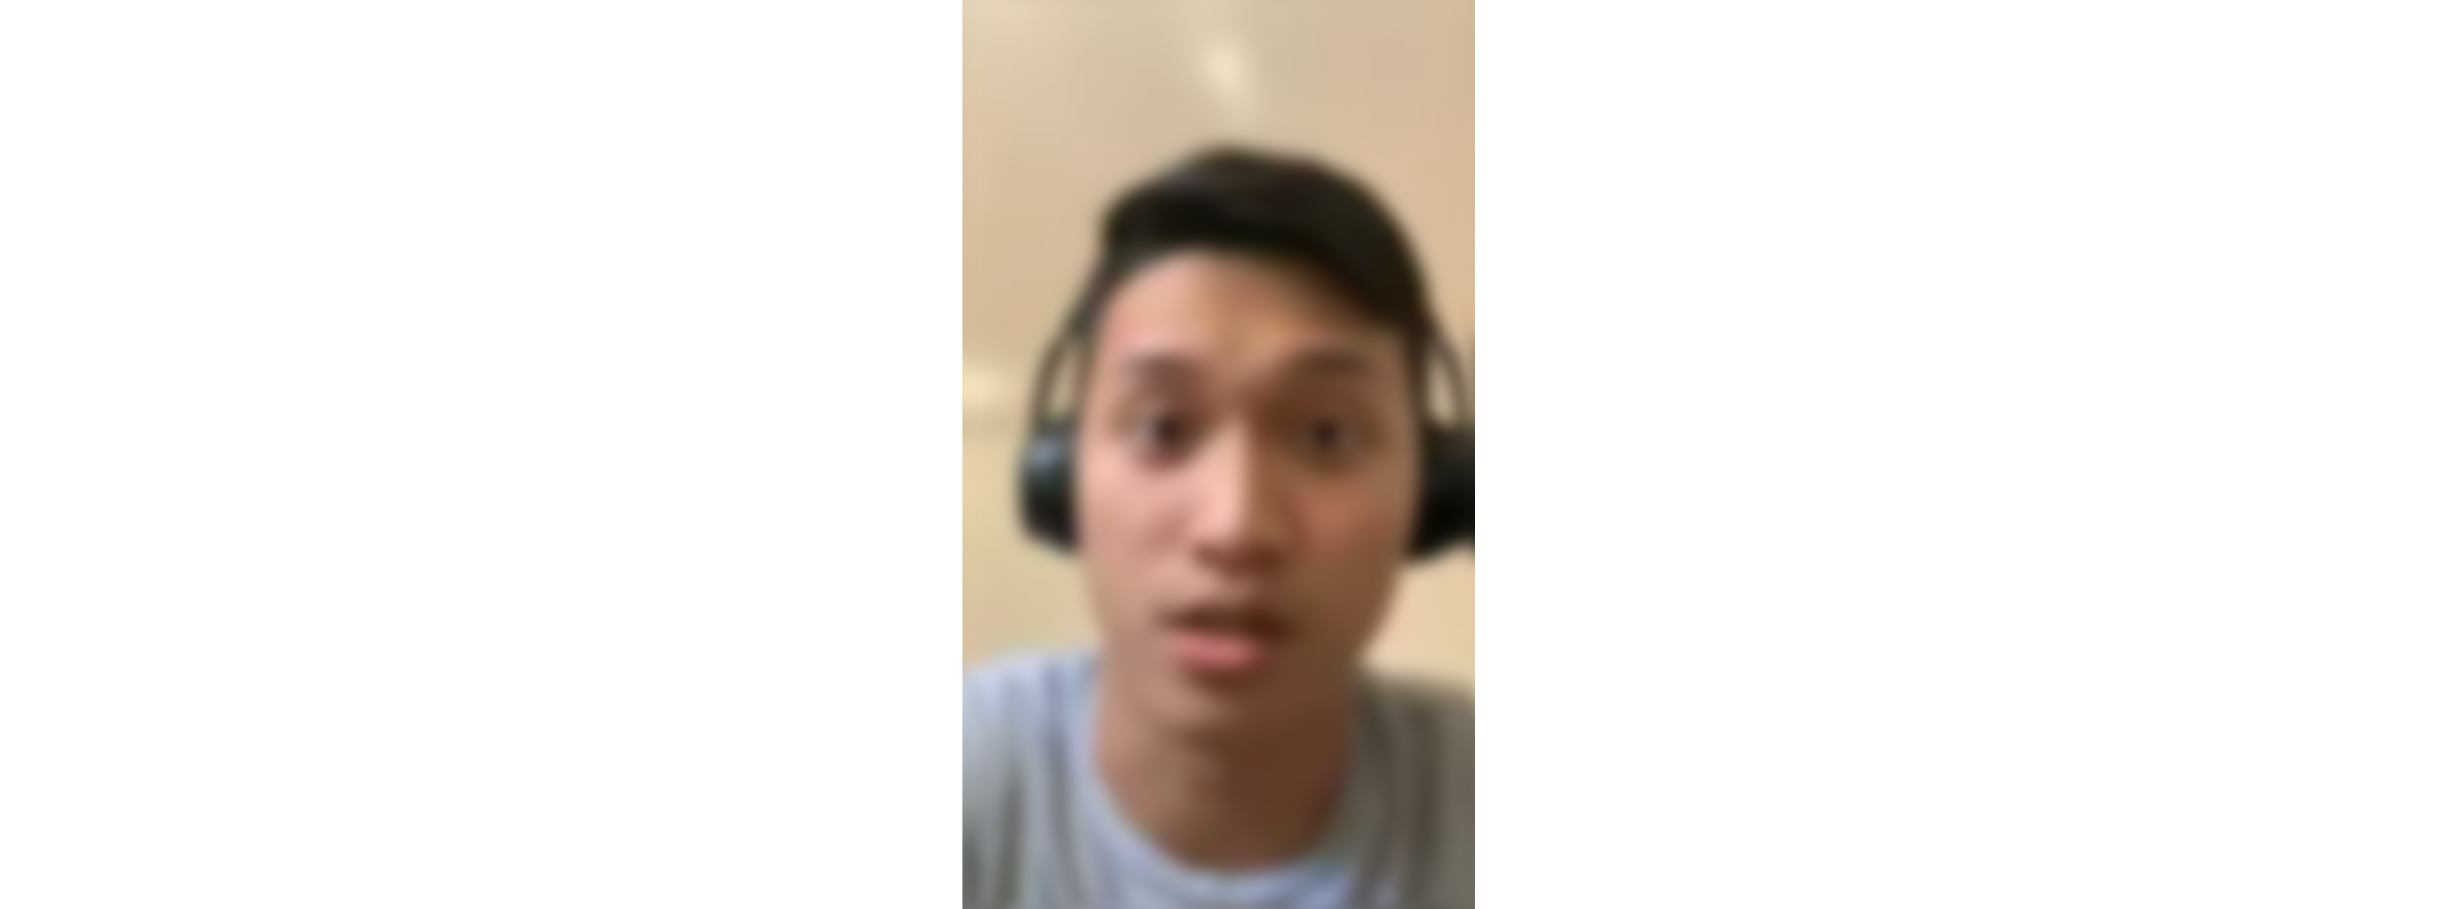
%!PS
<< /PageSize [2437 909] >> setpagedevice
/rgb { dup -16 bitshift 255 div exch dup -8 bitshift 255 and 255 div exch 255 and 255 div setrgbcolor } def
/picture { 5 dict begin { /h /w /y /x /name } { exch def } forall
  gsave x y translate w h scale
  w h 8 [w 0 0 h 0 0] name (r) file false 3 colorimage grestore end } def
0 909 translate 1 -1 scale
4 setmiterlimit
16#FFFFFF rgb
0 0 2437 909 rectfill
(pic1.raw) 962 0 513 909 picture
showpage
